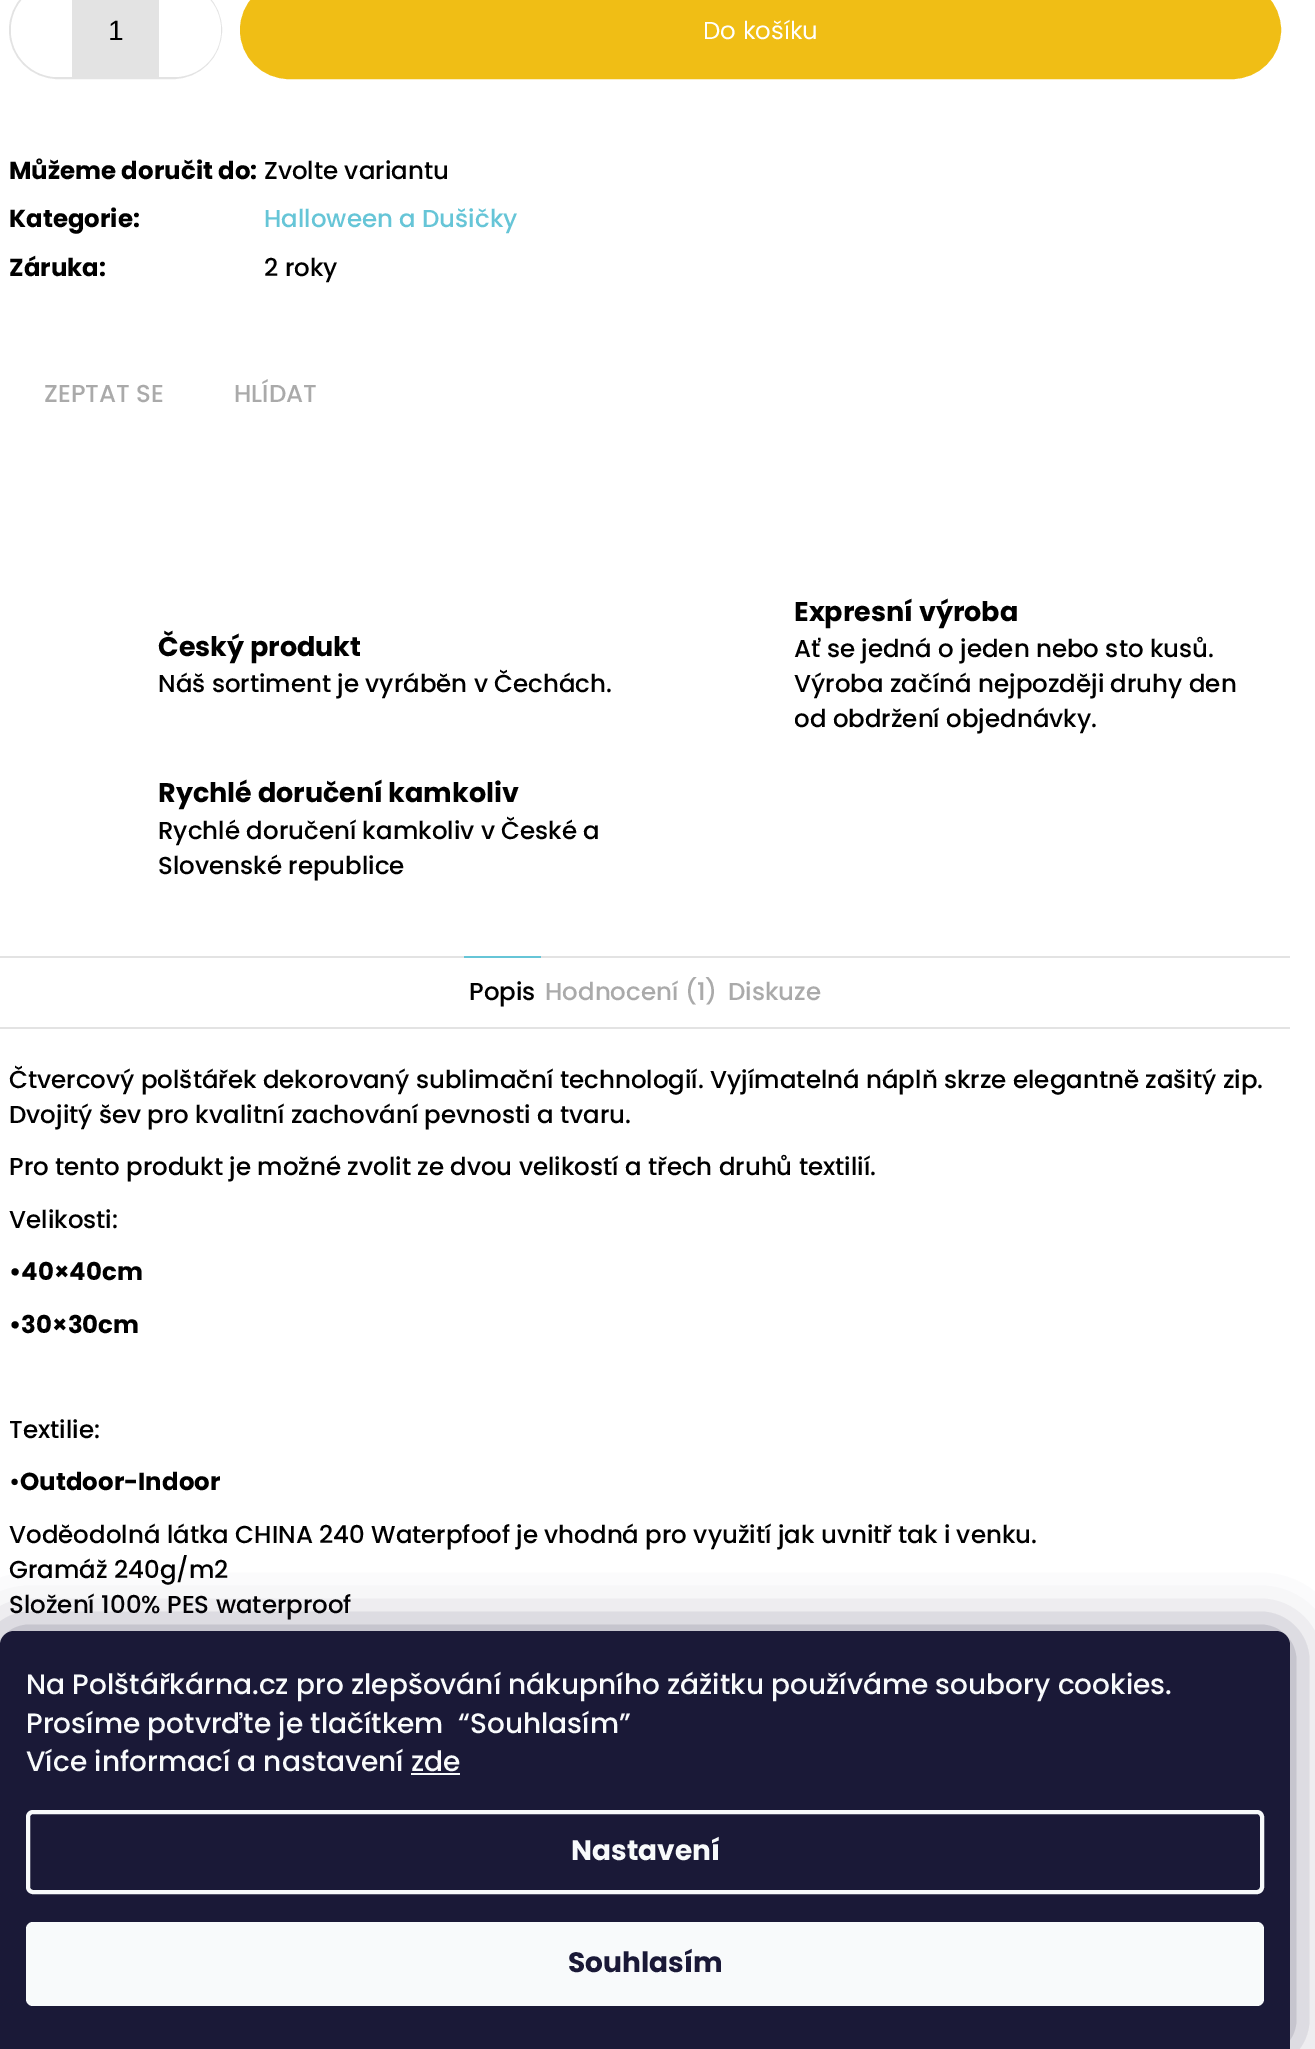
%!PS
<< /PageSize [1315 2049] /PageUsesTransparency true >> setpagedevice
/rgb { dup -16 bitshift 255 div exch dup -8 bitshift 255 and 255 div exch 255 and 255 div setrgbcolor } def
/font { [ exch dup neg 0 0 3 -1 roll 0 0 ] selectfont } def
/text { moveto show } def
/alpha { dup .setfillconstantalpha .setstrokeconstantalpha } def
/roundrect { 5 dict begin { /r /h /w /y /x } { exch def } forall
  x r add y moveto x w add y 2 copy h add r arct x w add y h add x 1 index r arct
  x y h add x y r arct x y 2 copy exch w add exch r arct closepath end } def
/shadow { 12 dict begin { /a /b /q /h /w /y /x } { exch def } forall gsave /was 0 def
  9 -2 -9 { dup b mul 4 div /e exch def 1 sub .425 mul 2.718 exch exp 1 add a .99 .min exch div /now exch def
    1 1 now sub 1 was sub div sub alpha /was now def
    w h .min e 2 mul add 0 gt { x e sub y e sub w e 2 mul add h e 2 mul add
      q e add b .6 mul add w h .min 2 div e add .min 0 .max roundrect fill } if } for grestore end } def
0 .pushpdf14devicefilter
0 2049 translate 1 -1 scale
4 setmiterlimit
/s1 { /LiberationSans-Regular 28 font 16#000000 rgb } def
/s2 { /Poppins-Regular 24.5 font 16#FFFFFF rgb } def
/s3 { /Poppins-Bold 24.5 font 16#000000 rgb } def
/s4 { /Poppins-Medium 24.5 font 16#000000 rgb } def
/s5 { /Poppins-Medium 24.5 font 16#66C5D7 rgb } def
/s6 { /Poppins-Medium 24.5 font 16#AAAAAA rgb } def
/s7 { /Poppins-Bold 27 font 16#000000 rgb } def
/s8 { /Poppins-Medium 28 font 16#F8FAFB rgb } def
/s9 { /Poppins-Bold 28 font 16#F8FAFB rgb } def
/s10 { /Poppins-Bold 28 font 16#1A1937 rgb } def
16#FFFFFF rgb
0 0 1315 2049 rectfill
16#E3E3E3 rgb
2 setlinewidth
10 -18 211 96 48 roundrect stroke
16#FFFFFF rgb
58 -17 moveto 72 -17 lineto 72 77 lineto 58 77 lineto 32 77 11 56 11 30 curveto 11 4 32 -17 58 -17 curveto closepath fill
16#E3E3E3 rgb
72 0 87 77 rectfill
s1
(1) 108 40 text
16#FFFFFF rgb
159 -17 moveto 174 -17 lineto 200 -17 221 4 221 30 curveto 221 56 200 77 174 77 curveto 159 77 lineto closepath fill
16#F0BE15 rgb
241 -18 1039 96 48 roundrect gsave fill grestore
stroke
s2
(Do košíku) 703 39 text
s3
(Můžeme doručit do:) 9 179 text
s4
(Zvolte variantu) 264 179 text
s3
(Kategorie:) 9 227 text
s5
(Halloween a Dušičky) 264 227 text
s3
(Záruka:) 9 276 text
s4
(2 roky) 264 276 text
s6
(ZEPTAT SE) 44 402 text
(HLÍDAT) 234 402 text
s7
(Český produkt) 158 656 text
s4
(Náš sortiment je vyráběn v Čechách.) 158 692 text
s7
(Expresní výroba) 794 621 text
s4
(Ať se jedná o jeden nebo sto kusů.) 794 657 text
(Výroba začíná nejpozději druhy den) 794 692 text
gsave
795 593 486 144 rectclip
(od obdržení objednávky.) 794 727 text
grestore
s7
(Rychlé doručení kamkoliv) 158 802 text
s4
(Rychlé doručení kamkoliv v České a) 158 839 text
(Slovenské republice) 158 874 text
16#E3E3E3 rgb
0 956 1290 2 rectfill
0 1027 1290 2 rectfill
16#66C5D7 rgb
464 956 77 2 rectfill
s4
(Popis) 469 1000 text
s6
(Hodnocení \(1\)) 545 1000 text
(Diskuze) 728 1000 text
s4
(Čtvercový polštářek dekorovaný sublimační technologií. Vyjímatelná náplň skrze elegantně zašitý zip.) 9 1088 text
(Dvojitý šev pro kvalitní zachování pevnosti a tvaru.) 9 1123 text
(Pro tento produkt je možné zvolit ze dvou velikostí a třech druhů textilií.) 9 1175 text
(Velikosti:) 9 1228 text
s3
(•40×40cm) 9 1280 text
(•30×30cm) 9 1333 text
s4
(Textilie:) 9 1438 text
(•) 9 1490 text
s3
(Outdoor-Indoor) 20 1490 text
s4
(Voděodolná látka CHINA 240 Waterpfoof je vhodná pro využití jak uvnitř tak i venku.) 9 1543 text
(Gramáž 240g/m2) 9 1578 text
(Složení 100% PES waterproof) 9 1613 text
16#1B1939 rgb
0 1631 1290 418 14 26 0.5 shadow
16#1A1937 rgb
14 1631 moveto 1276 1631 lineto 1283.5 1631 1290 1637.5 1290 1645 curveto 1290 2049 lineto 0 2049 lineto 0 1645 lineto 0 1637.5 6.5 1631 14 1631 curveto closepath fill
s8
(Na Polštářkárna.cz pro zlepšování nákupního zážitku používáme soubory cookies.) 26 1694 text
(Prosíme potvrďte je tlačítkem  “Souhlasím”) 26 1733 text
(Více informací a nastavení zde) 26 1771 text
411 1773 49 2 rectfill
4 setlinewidth
28 1812 1234 80 5 roundrect stroke
s9
(Nastavení) 571 1860 text
26 1922 1238 84 7 roundrect fill
s10
(Souhlasím) 568 1972 text
.poppdf14devicefilter showpage
